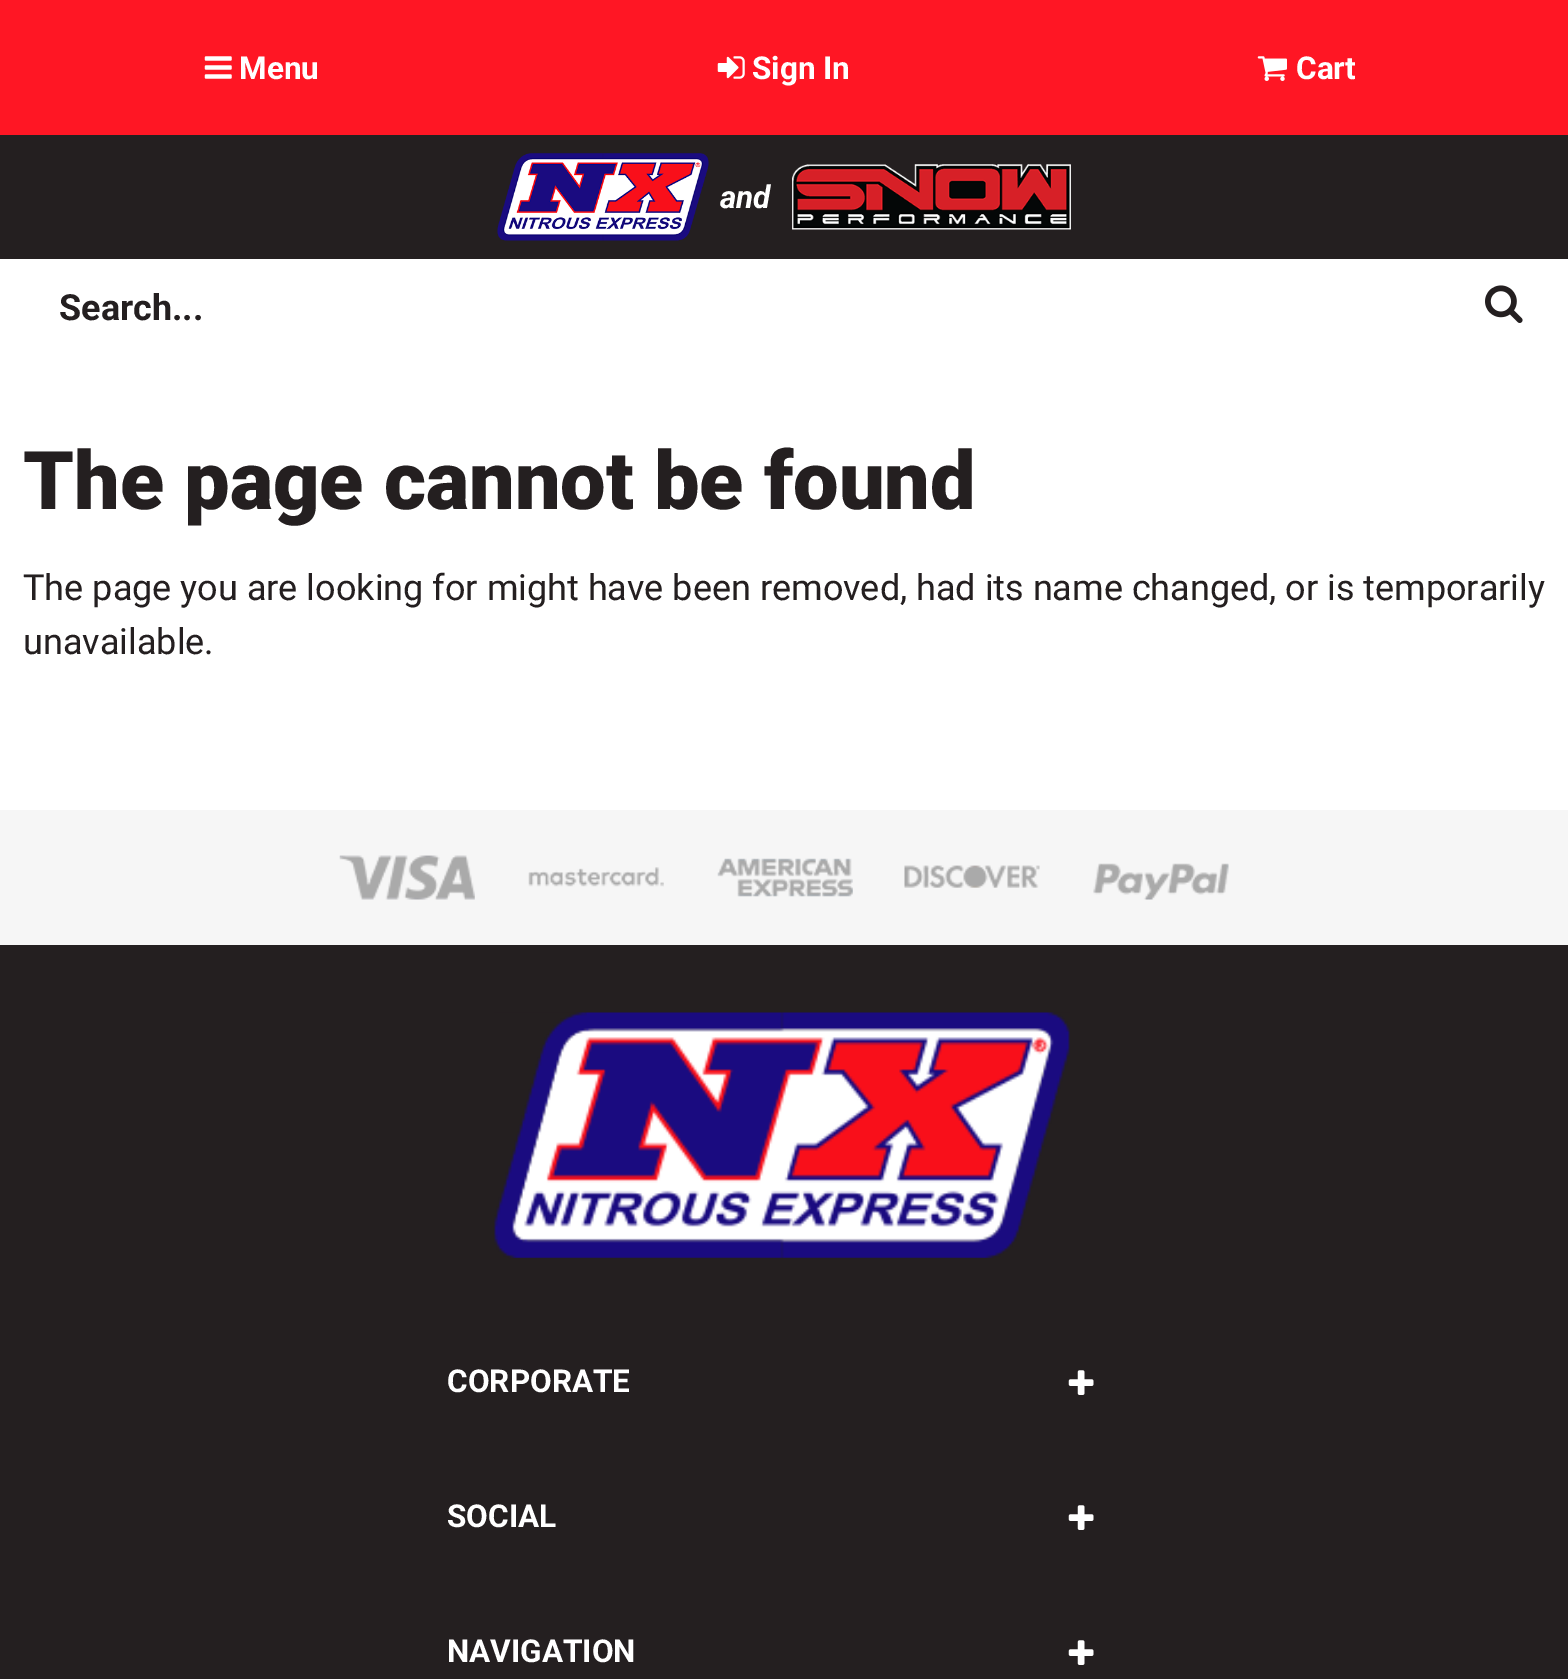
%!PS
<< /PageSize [1568 1679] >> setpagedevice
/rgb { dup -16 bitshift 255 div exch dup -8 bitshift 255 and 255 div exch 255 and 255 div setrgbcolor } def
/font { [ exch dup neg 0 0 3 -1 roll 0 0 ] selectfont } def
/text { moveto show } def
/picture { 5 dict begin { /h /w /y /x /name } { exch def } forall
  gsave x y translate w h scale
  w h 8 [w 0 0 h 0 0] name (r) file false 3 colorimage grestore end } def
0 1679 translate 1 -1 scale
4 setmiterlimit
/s1 { /Roboto-Bold 31.5 font 16#FFFFFF rgb } def
/s2 { /Roboto-BoldItalic 31.5 font 16#FFFFFF rgb } def
/s3 { /Roboto-Bold 36 font 16#241F20 rgb } def
/s4 { /Roboto-Black 81 font 16#241F20 rgb } def
/s5 { /Roboto-Regular 36 font 16#241F20 rgb } def
16#FFFFFF rgb
0 0 1568 1679 rectfill
16#FF1624 rgb
0 0 1568 135 rectfill
(pic1.raw) 204 56 28 23 picture
s1
(Menu) 239 79 text
(pic2.raw) 717 56 28 23 picture
(Sign In) 752 79 text
(pic3.raw) 1257 56 30 25 picture
(Cart) 1296 79 text
16#241F20 rgb
0 135 1568 124 rectfill
(pic4.raw) 497 153 212 88 picture
s2
(and) 720 208 text
(pic5.raw) 792 164 279 66 picture
s3
(Search...) 59 320 text
(pic6.raw) 1485 285 38 38 picture
s4
(The page cannot be found) 23 509 text
s5
(The page you are looking for might have been removed, had its name changed, or is temporarily) 23 600 text
(unavailable.) 23 654 text
0 945 1568 734 rectfill
16#F6F6F6 rgb
0 810 1568 135 rectfill
(pic7.raw) 339 855 136 45 picture
(pic8.raw) 528 867 136 20 picture
(pic9.raw) 717 858 136 39 picture
(pic10.raw) 904 865 136 23 picture
(pic11.raw) 1093 863 136 37 picture
(pic12.raw) 494 1012 576 246 picture
s1
(CORPORATE) 447 1392 text
(pic13.raw) 1068 1370 26 25 picture
(SOCIAL) 447 1527 text
(pic13.raw) 1068 1505 26 25 picture
(NAVIGATION) 447 1662 text
(pic13.raw) 1068 1640 26 25 picture
showpage
